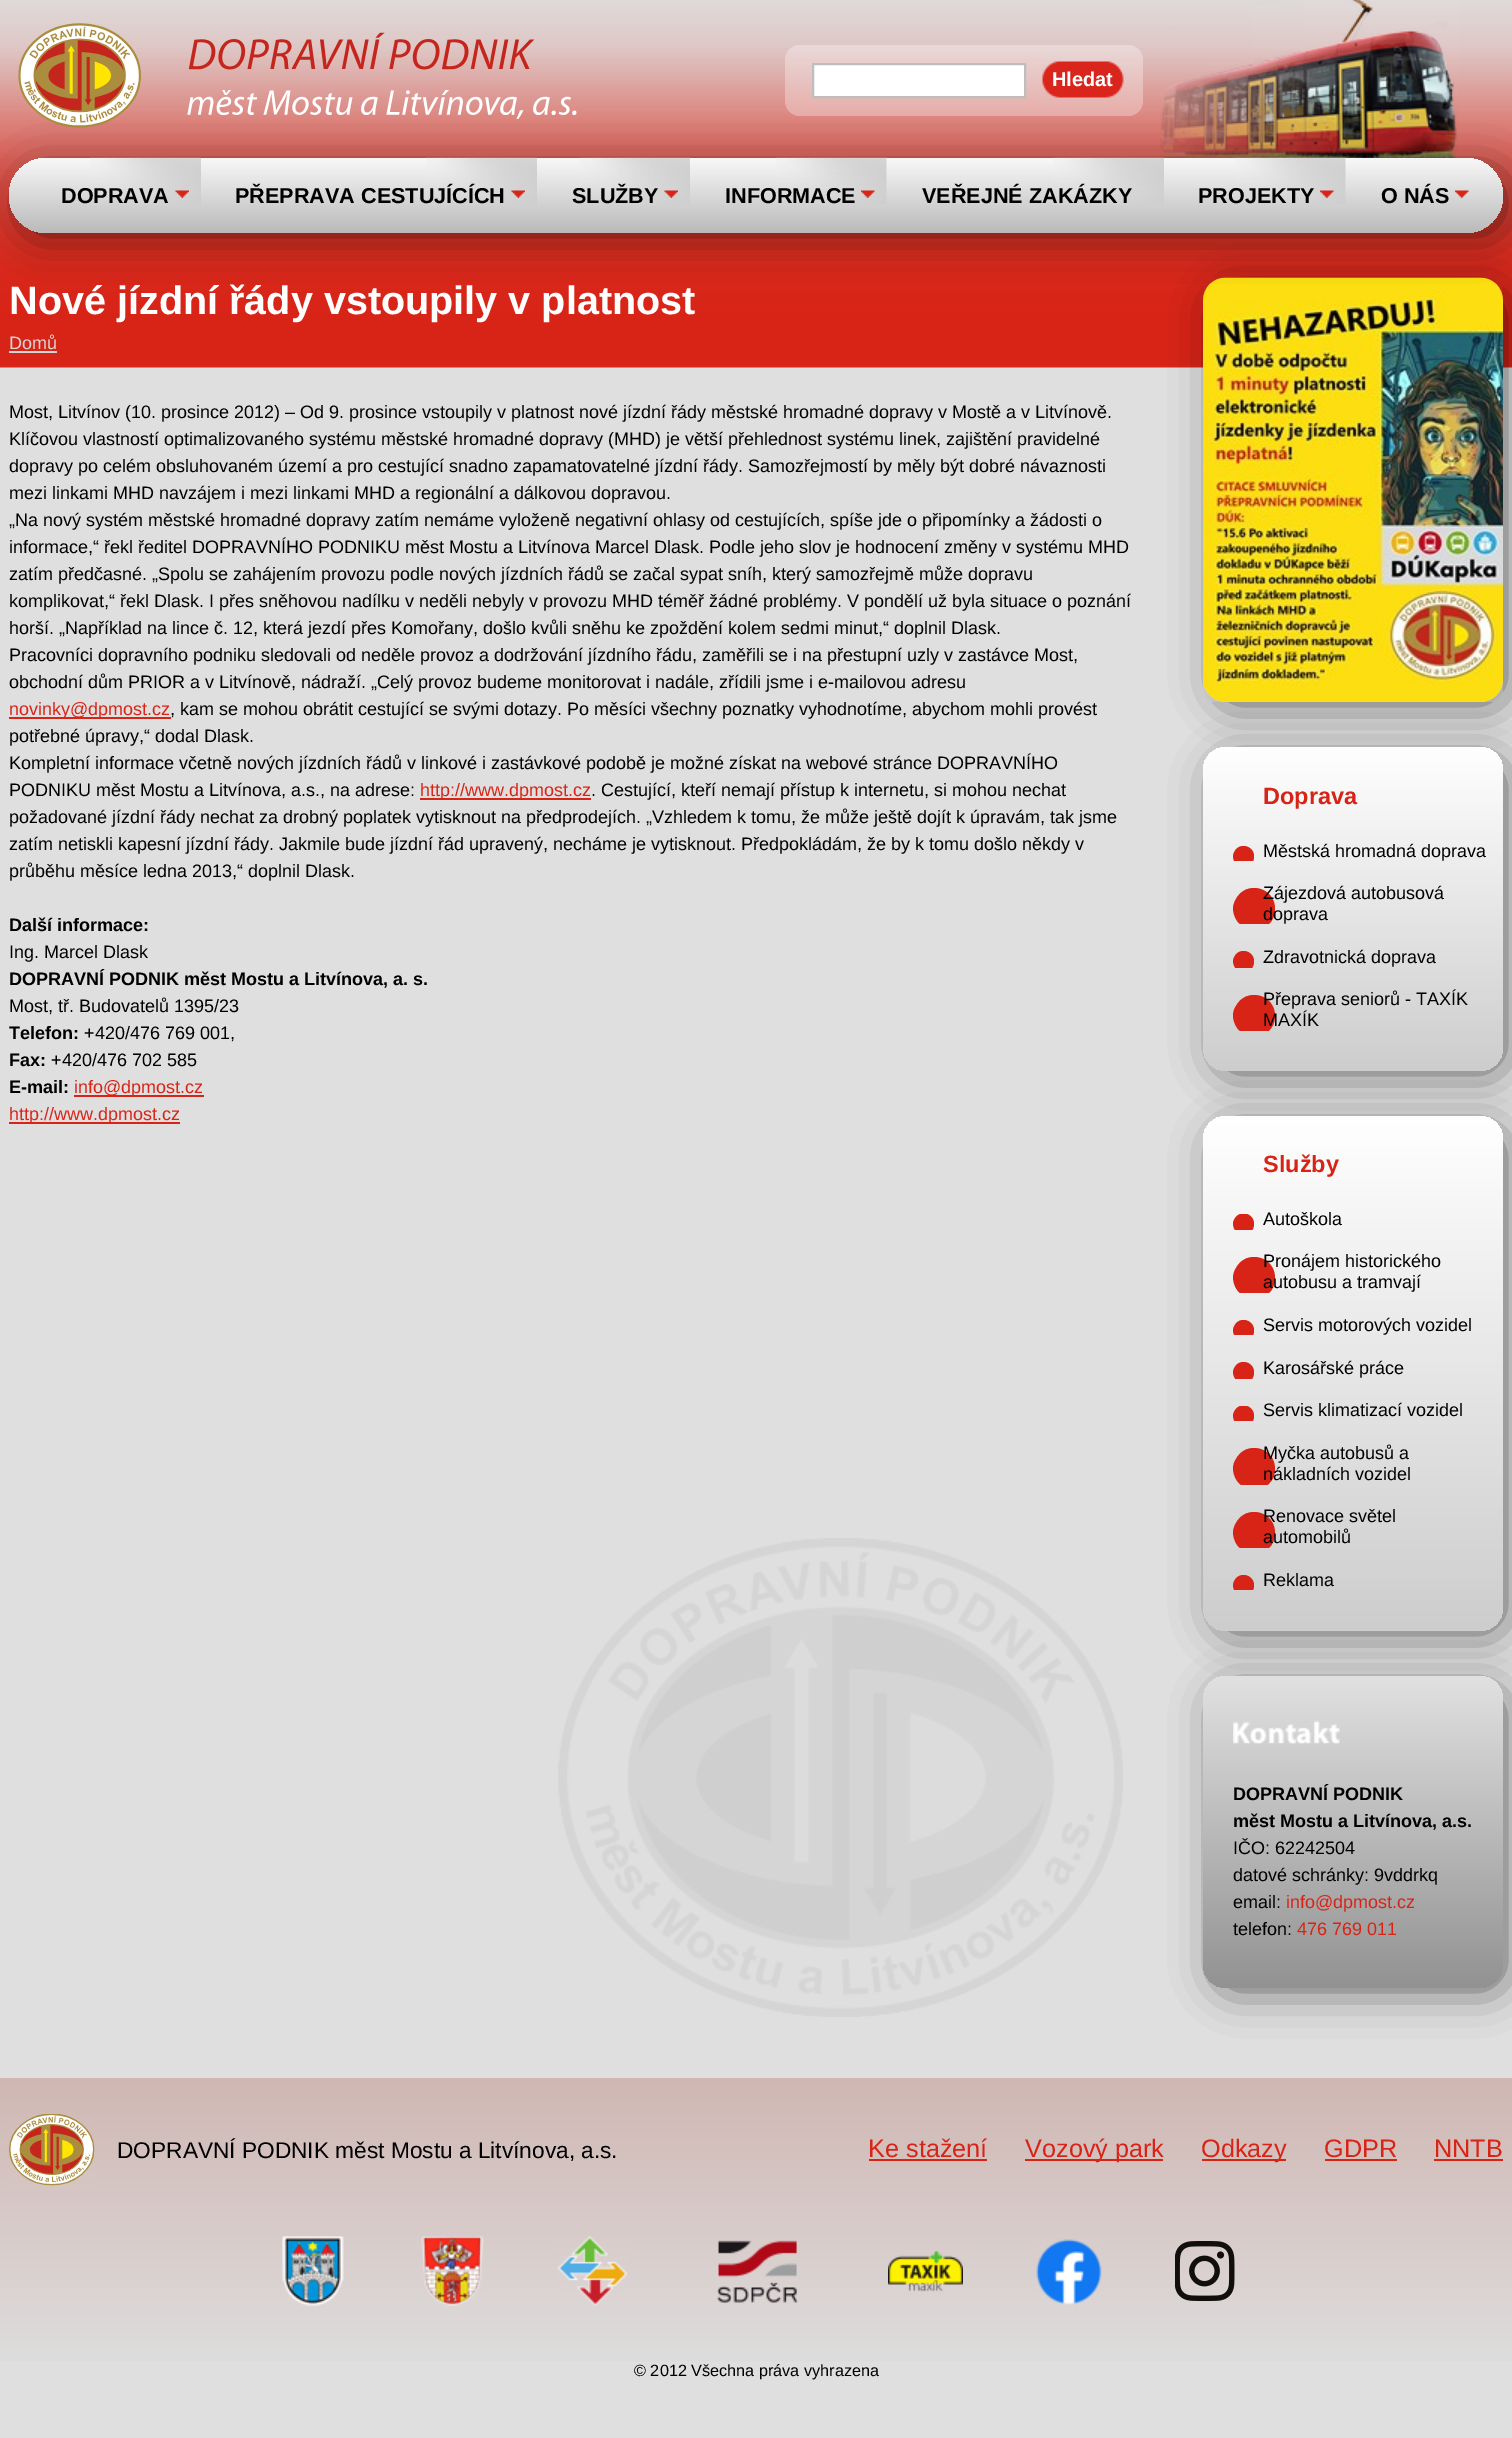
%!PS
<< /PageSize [1512 2438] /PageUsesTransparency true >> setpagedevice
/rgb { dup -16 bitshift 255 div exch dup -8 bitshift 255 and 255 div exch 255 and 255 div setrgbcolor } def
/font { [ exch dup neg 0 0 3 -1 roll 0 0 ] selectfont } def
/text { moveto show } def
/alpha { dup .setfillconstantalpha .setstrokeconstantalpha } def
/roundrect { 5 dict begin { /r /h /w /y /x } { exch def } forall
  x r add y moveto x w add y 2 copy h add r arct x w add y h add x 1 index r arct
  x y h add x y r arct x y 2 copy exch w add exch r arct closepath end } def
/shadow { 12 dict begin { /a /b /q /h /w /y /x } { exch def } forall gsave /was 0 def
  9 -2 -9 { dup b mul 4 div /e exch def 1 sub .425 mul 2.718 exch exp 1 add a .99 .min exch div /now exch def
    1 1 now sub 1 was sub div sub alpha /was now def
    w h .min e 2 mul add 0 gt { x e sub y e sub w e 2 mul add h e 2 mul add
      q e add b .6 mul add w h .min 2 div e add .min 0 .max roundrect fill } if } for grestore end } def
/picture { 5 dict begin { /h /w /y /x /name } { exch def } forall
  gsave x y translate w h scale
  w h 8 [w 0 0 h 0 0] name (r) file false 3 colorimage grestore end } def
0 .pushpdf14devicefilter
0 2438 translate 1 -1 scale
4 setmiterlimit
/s1 { /LiberationSans-Bold 20 font 16#FFFFFF rgb } def
/s2 { /LiberationSans-Bold 21.6 font 16#000000 rgb } def
/s3 { /LiberationSans-Bold 39.6 font 16#FFFFFF rgb } def
/s4 { /LiberationSans-Regular 18 font 16#D6D6D6 rgb } def
/s5 { /LiberationSans-Regular 18 font 16#000000 rgb } def
/s6 { /LiberationSans-Regular 18 font 16#D82417 rgb } def
/s7 { /LiberationSans-Bold 18 font 16#000000 rgb } def
/s8 { /LiberationSans-Bold 23.5 font 16#D82417 rgb } def
/s9 { /LiberationSans-Regular 22.7 font 16#000000 rgb } def
/s10 { /LiberationSans-Regular 25.25 font 16#D82417 rgb } def
/s11 { /LiberationSans-Regular 16.25 font 16#000000 rgb } def
16#DFDFDF rgb
0 0 1512 2438 rectfill
(pic1.raw) 0 0 1512 368 picture
(pic2.raw) 558 1538 565 479 picture
(pic3.raw) 18 23 559 105 picture
(pic4.raw) 1160 0 298 158 picture
0.3 alpha
16#FFFFFF rgb
785 45 358 71 15 roundrect fill
1 alpha
813 64 moveto 1025 64 lineto 1025 97 lineto 813 97 lineto closepath gsave fill grestore
16#BEBEBE rgb
2 setlinewidth
stroke
(pic5.raw) 1042 61 82 37 picture
s1
(Hledat) 1052 86 text
16#000000 rgb
1218 293 285 409 15 22.5 0.6 shadow
1218 762 285 309 15 22.5 0.6 shadow
(pic18.raw) 1203 277 300 425 picture
24 173 1479 60 30 22.5 0.6 shadow
gsave 9 158 1494 75 37.5 roundrect clip newpath
<< /ShadingType 2 /ColorSpace /DeviceRGB /Coords [756 157 756 233] /Extend [true true] /Function << /FunctionType 2 /Domain [0 1] /C0 [0.976 0.976 0.976] /C1 [0.729 0.729 0.729] /N 1 >> >> shfill grestore
(pic6.raw) 90 157 111 48 picture
(pic7.raw) 175 190 14 8 picture
s2
(DOPRAVA) 61 203 text
(pic8.raw) 426 157 111 48 picture
(pic9.raw) 511 190 14 8 picture
(PŘEPRAVA CESTUJÍCÍCH) 235 203 text
(pic10.raw) 579 157 111 48 picture
(pic11.raw) 664 190 14 8 picture
(SLUŽBY) 572 203 text
(pic12.raw) 776 157 111 47 picture
(pic13.raw) 861 190 14 8 picture
(INFORMACE) 725 203 text
(pic14.raw) 1053 157 111 48 picture
(VEŘEJNÉ ZAKÁZKY) 922 203 text
(pic15.raw) 1235 157 111 47 picture
(pic16.raw) 1320 190 14 8 picture
(PROJEKTY) 1198 203 text
(pic17.raw) 1455 190 14 8 picture
(O NÁS) 1381 203 text
s3
(Nové jízdní řády vstoupily v platnost) 9 314 text
s4
(Domů) 9 349 text
9 351 48 2 rectfill
s5
(Most, Litvínov \(10. prosince 2012\) – Od 9. prosince vstoupily v platnost nové jízdní řády městské hromadné dopravy v Mostě a v Litvínově.) 9 418 text
(Klíčovou vlastností optimalizovaného systému městské hromadné dopravy \(MHD\) je větší přehlednost systému linek, zajištění pravidelné) 9 445 text
(dopravy po celém obsluhovaném území a pro cestující snadno zapamatovatelné jízdní řády. Samozřejmostí by měly být dobré návaznosti) 9 472 text
(mezi linkami MHD navzájem i mezi linkami MHD a regionální a dálkovou dopravou.) 9 499 text
(„Na nový systém městské hromadné dopravy zatím nemáme vyloženě negativní ohlasy od cestujících, spíše jde o připomínky a žádosti o) 9 526 text
(informace,“ řekl ředitel DOPRAVNÍHO PODNIKU měst Mostu a Litvínova Marcel Dlask. Podle jeho slov je hodnocení změny v systému MHD) 9 553 text
(zatím předčasné. „Spolu se zahájením provozu podle nových jízdních řádů se začal sypat sníh, který samozřejmě může dopravu) 9 580 text
(komplikovat,“ řekl Dlask. I přes sněhovou nadílku v neděli nebyly v provozu MHD téměř žádné problémy. V pondělí už byla situace o poznání) 9 607 text
(horší. „Například na lince č. 12, která jezdí přes Komořany, došlo kvůli sněhu ke zpoždění kolem sedmi minut,“ doplnil Dlask.) 9 634 text
(Pracovníci dopravního podniku sledovali od neděle provoz a dodržování jízdního řádu, zaměřili se i na přestupní uzly v zastávce Most,) 9 661 text
(obchodní dům PRIOR a v Litvínově, nádraží. „Celý provoz budeme monitorovat i nadále, zřídili jsme i e-mailovou adresu) 9 688 text
16#D82417 rgb
9 717 162 2 rectfill
(novinky@dpmost.cz) 9 715 text
s5
(, kam se mohou obrátit cestující se svými dotazy. Po měsíci všechny poznatky vyhodnotíme, abychom mohli provést) 170 715 text
(potřebné úpravy,“ dodal Dlask.) 9 742 text
(Kompletní informace včetně nových jízdních řádů v linkové i zastávkové podobě je možné získat na webové stránce DOPRAVNÍHO) 9 769 text
(PODNIKU měst Mostu a Litvínova, a.s., na adrese:) 9 796 text
16#D82417 rgb
420 798 171 2 rectfill
(http://www.dpmost.cz) 420 796 text
s5
(. Cestující, kteří nemají přístup k internetu, si mohou nechat) 591 796 text
(požadované jízdní řády nechat za drobný poplatek vytisknout na předprodejích. „Vzhledem k tomu, že může ještě dojít k úpravám, tak jsme) 9 823 text
(zatím netiskli kapesní jízdní řády. Jakmile bude jízdní řád upravený, necháme je vytisknout. Předpokládám, že by k tomu došlo někdy v) 9 850 text
(průběhu měsíce ledna 2013,“ doplnil Dlask.) 9 877 text
s7
(Další informace:) 9 931 text
s5
(Ing. Marcel Dlask) 9 958 text
s7
(DOPRAVNÍ PODNIK měst Mostu a Litvínova, a. s.) 9 985 text
s5
(Most, tř. Budovatelů 1395/23) 9 1012 text
s7
(Telefon:) 9 1039 text
s5
(+420/476 769 001,) 84 1039 text
s7
(Fax:) 9 1066 text
s5
(+420/476 702 585) 51 1066 text
s7
(E-mail:) 9 1093 text
16#D82417 rgb
74 1095 130 2 rectfill
s6
(info@dpmost.cz) 74 1093 text
9 1122 171 2 rectfill
(http://www.dpmost.cz) 9 1120 text
gsave 1203 747 300 324 23 roundrect clip newpath
<< /ShadingType 2 /ColorSpace /DeviceRGB /Coords [1353 747 1353 1071] /Extend [true true] /Function << /FunctionType 2 /Domain [0 1] /C0 [1 1 1] /C1 [0.804 0.804 0.804] /N 1 >> >> shfill grestore
s8
(Doprava) 1263 804 text
gsave
1233 846 21 15 rectclip
1254 856.5 moveto 1254 870 1234 870.5 1233 856.5 curveto 1233 855 1233.5 853 1234.5 851.5 curveto 1239.5 842 1254 845.5 1254 856.5 curveto closepath eofill
grestore
s5
(Městská hromadná doprava) 1263 857 text
gsave
1233 888 42 36 rectclip
16#D82417 rgb
1275 909 moveto 1275 936 1235 937 1233 909 curveto 1233 906 1234 902 1236 899 curveto 1246 880 1275 887 1275 909 curveto closepath eofill
grestore
(Zájezdová autobusová) 1263 899 text
(doprava) 1263 920 text
gsave
1233 951 21 17 rectclip
16#D82417 rgb
1254 961.5 moveto 1254 975 1234 975.5 1233 961.5 curveto 1233 960 1233.5 958 1234.5 956.5 curveto 1239.5 947 1254 950.5 1254 961.5 curveto closepath eofill
grestore
(Zdravotnická doprava) 1263 963 text
gsave
1233 995 42 36 rectclip
16#D82417 rgb
1275 1016 moveto 1275 1042 1235 1044 1233 1016 curveto 1233 1012 1234 1009 1236 1006 curveto 1246 987 1275 994 1275 1016 curveto closepath eofill
grestore
(Přeprava seniorů - TAXÍK) 1263 1005 text
(MAXÍK) 1263 1026 text
1218 1131 285 500 15 22.5 0.6 shadow
gsave 1203 1116 300 515 23 roundrect clip newpath
<< /ShadingType 2 /ColorSpace /DeviceRGB /Coords [1353 1116 1353 1631] /Extend [true true] /Function << /FunctionType 2 /Domain [0 1] /C0 [1 1 1] /C1 [0.804 0.804 0.804] /N 1 >> >> shfill grestore
s8
(Služby) 1263 1172 text
gsave
1233 1214 21 16 rectclip
1254 1224 moveto 1254 1237.5 1234 1238 1233 1224 curveto 1233 1222.5 1233.5 1220.5 1234.5 1219 curveto 1239.5 1209.5 1254 1213 1254 1224 curveto closepath eofill
grestore
s5
(Autoškola) 1263 1225 text
gsave
1233 1257 42 36 rectclip
16#D82417 rgb
1275 1278 moveto 1275 1305 1235 1306 1233 1278 curveto 1233 1275 1234 1271 1236 1268 curveto 1246 1249 1275 1256 1275 1278 curveto closepath eofill
grestore
(Pronájem historického) 1263 1267 text
(autobusu a tramvají) 1263 1288 text
gsave
1233 1320 21 15 rectclip
16#D82417 rgb
1254 1330.5 moveto 1254 1344 1234 1344.5 1233 1330.5 curveto 1233 1329 1233.5 1327 1234.5 1325.5 curveto 1239.5 1316 1254 1319.5 1254 1330.5 curveto closepath eofill
grestore
(Servis motorových vozidel) 1263 1331 text
gsave
1233 1362 21 17 rectclip
16#D82417 rgb
1254 1372.5 moveto 1254 1386 1234 1386.5 1233 1372.5 curveto 1233 1371 1233.5 1369 1234.5 1367.5 curveto 1239.5 1358 1254 1361.5 1254 1372.5 curveto closepath eofill
grestore
(Karosářské práce) 1263 1374 text
gsave
1233 1406 21 15 rectclip
16#D82417 rgb
1254 1416 moveto 1254 1429.5 1234 1430 1233 1416 curveto 1233 1414.5 1233.5 1412.5 1234.5 1411 curveto 1239.5 1401.5 1254 1405 1254 1416 curveto closepath eofill
grestore
(Servis klimatizací vozidel) 1263 1416 text
gsave
1233 1448 42 37 rectclip
16#D82417 rgb
1275 1469 moveto 1275 1495 1235 1497 1233 1469 curveto 1233 1465 1234 1462 1236 1459 curveto 1246 1440 1275 1447 1275 1469 curveto closepath eofill
grestore
(Myčka autobusů a) 1263 1459 text
(nákladních vozidel) 1263 1480 text
gsave
1233 1512 42 36 rectclip
16#D82417 rgb
1275 1533 moveto 1275 1560 1235 1561 1233 1533 curveto 1233 1530 1234 1526 1236 1523 curveto 1246 1504 1275 1511 1275 1533 curveto closepath eofill
grestore
(Renovace světel) 1263 1522 text
(automobilů) 1263 1543 text
gsave
1233 1575 21 15 rectclip
16#D82417 rgb
1254 1585.5 moveto 1254 1599 1234 1599.5 1233 1585.5 curveto 1233 1584 1233.5 1582 1234.5 1580.5 curveto 1239.5 1571 1254 1574.5 1254 1585.5 curveto closepath eofill
grestore
(Reklama) 1263 1586 text
1218 1691 285 297 15 22.5 0.6 shadow
gsave 1203 1676 300 312 23 roundrect clip newpath
<< /ShadingType 2 /ColorSpace /DeviceRGB /Coords [1353 1676 1353 1988] /Extend [true true] /Function << /FunctionType 2 /Domain [0 1] /C0 [0.882 0.882 0.882] /C1 [0.573 0.573 0.573] /N 1 >> >> shfill grestore
(pic19.raw) 1233 1720 107 24 picture
s7
(DOPRAVNÍ PODNIK) 1233 1800 text
(měst Mostu a Litvínova, a.s.) 1233 1827 text
s5
(IČO: 62242504) 1233 1854 text
(datové schránky: 9vddrkq) 1233 1881 text
(email:) 1233 1908 text
s6
(info@dpmost.cz) 1286 1908 text
s5
(telefon:) 1233 1935 text
s6
(476 769 011) 1297 1935 text
gsave 0 2078 moveto 1512 2078 lineto 1512 2362 lineto 0 2362 lineto closepath clip newpath
<< /ShadingType 2 /ColorSpace /DeviceRGB /Coords [756 2078 756 2379] /Extend [true true] /Function << /FunctionType 2 /Domain [0 1] /C0 [0.816 0.718 0.702] /C1 [0.875 0.875 0.875] /N 1 >> >> shfill grestore
(pic20.raw) 9 2114 86 72 picture
s9
(DOPRAVNÍ PODNIK měst Mostu a Litvínova, a.s.) 117 2158 text
s10
(Ke stažení) 868 2157 text
869 2159 118 2 rectfill
1025 2159 138 2 rectfill
(Vozový park) 1025 2157 text
1202 2159 84 2 rectfill
(Odkazy) 1201 2157 text
(GDPR) 1324 2157 text
1325 2159 72 2 rectfill
(NNTB) 1434 2157 text
1434 2159 69 2 rectfill
(pic21.raw) 282 2236 62 70 picture
(pic22.raw) 421 2236 63 70 picture
(pic23.raw) 558 2236 69 70 picture
(pic24.raw) 716 2240 82 63 picture
(pic25.raw) 888 2250 75 42 picture
(pic26.raw) 1036 2239 66 66 picture
(pic27.raw) 1175 2241 60 60 picture
s11
(© 2012 Všechna práva vyhrazena) 634 2376 text
.poppdf14devicefilter showpage
